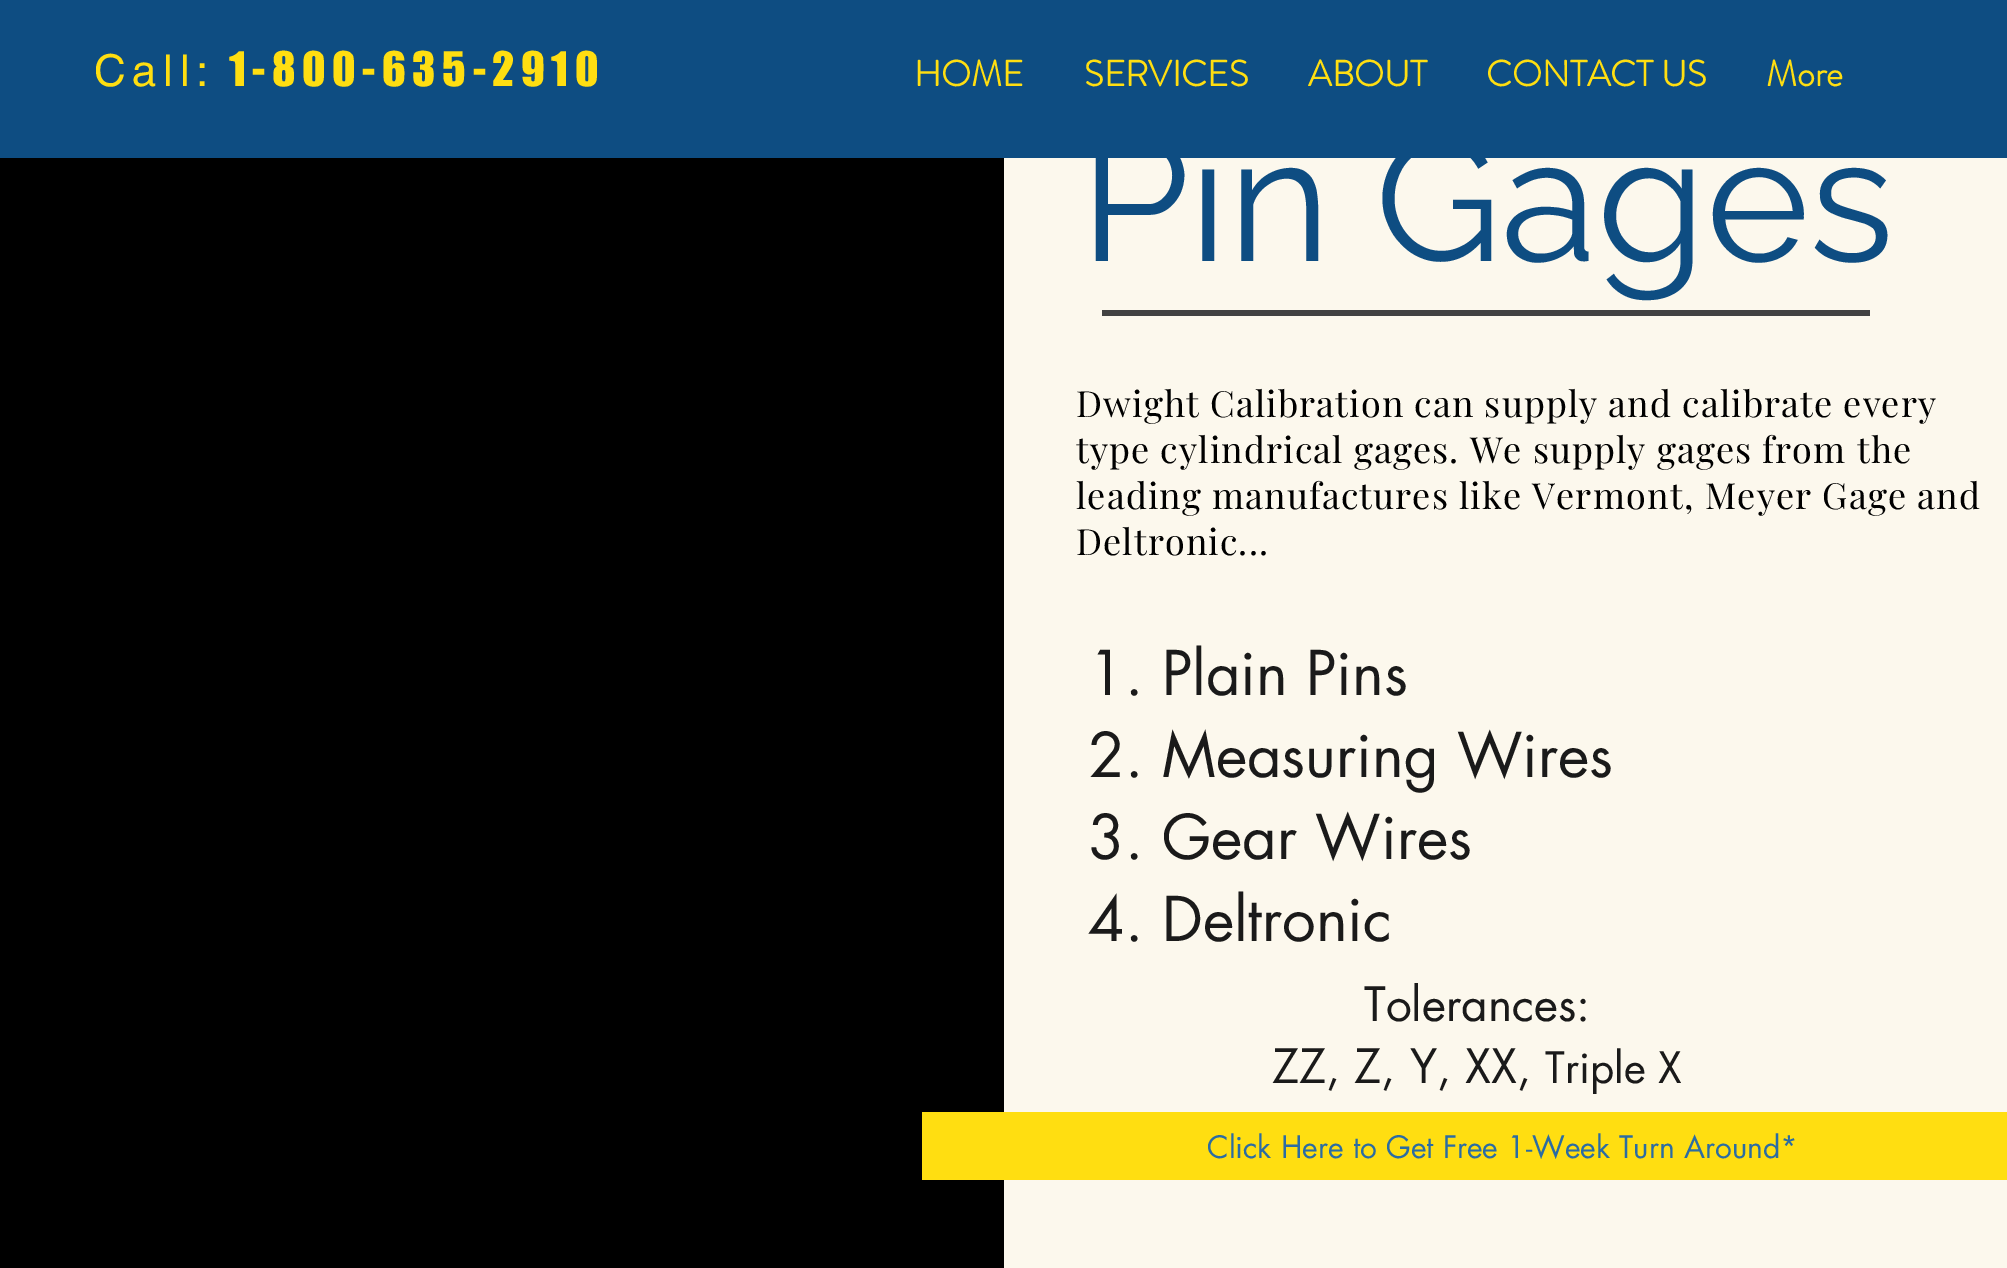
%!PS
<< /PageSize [2007 1268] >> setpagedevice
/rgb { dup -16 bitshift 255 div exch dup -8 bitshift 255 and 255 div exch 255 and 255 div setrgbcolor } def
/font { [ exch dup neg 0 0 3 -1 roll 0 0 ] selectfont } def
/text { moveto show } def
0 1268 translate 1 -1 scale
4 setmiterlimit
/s1 { /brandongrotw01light-Bold 36 font 16#FFDE11 rgb } def
/s2 { /Raleway-Regular 176 font 16#0E4D82 rgb } def
/s3 { /futura-Regular 60 font 16#1A1A1A rgb } def
/s4 { /futura-Regular 46 font 16#1A1A1A rgb } def
/s5 { /futura-Regular 42 font 16#1A1A1A rgb } def
/s6 { /futura-Regular 30 font 16#2B6CA3 rgb } def
16#000000 rgb
0 0 2007 1268 rectfill
16#0E4D82 rgb
0 0 2007 158 rectfill
/helvetica-Regular 44 font
16#FFDE11 rgb
94 86 moveto 6.6 0 (Call:) ashow
/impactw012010-Regular 44 font
229 86 moveto 6.6 0 (1-800-635-2910) ashow
s1
(HOME) 914 86 text
(SERVICES) 1084 86 text
(ABOUT) 1308 86 text
(CONTACT US) 1486 86 text
(More) 1766 86 text
16#FCF8ED rgb
1004 158 1003 1110 rectfill
s2
(Pin Gages) 1080 261 text
16#424242 rgb
1102 310 768 6 rectfill
/PlayfairDisplay-Regular 36 font
16#000000 rgb
1076 417 moveto 1.1 0 (Dwight Calibration can supply and calibrate every) ashow
1076 463 moveto 1.1 0 (type cylindrical gages. We supply gages) ashow
1762 463 moveto 1.25 0 (from) ashow
1857 463 moveto 1.1 0 (the) ashow
1076 509 moveto 1.1 0 (leading manufactures like) ashow
1532 509 moveto 1.25 0 (Vermont,) ashow
1705 509 moveto 1.1 0 (Meyer Gage and) ashow
1076 555 moveto 1.1 0 (Deltronic...) ashow
s3
(1. Plain Pins) 1088 695 text
(2. Measuring Wires) 1088 777 text
(3. Gear Wires) 1088 859 text
(4. Deltronic) 1088 941 text
s4
(Tolerances:) 1364 1021 text
(ZZ, Z, Y, XX,) 1272 1083 text
s5
(Triple X) 1545 1083 text
16#FFDE11 rgb
922 1112 1085 68 rectfill
s6
(Click Here to Get Free 1-Week Turn Around*) 1207 1158 text
showpage
